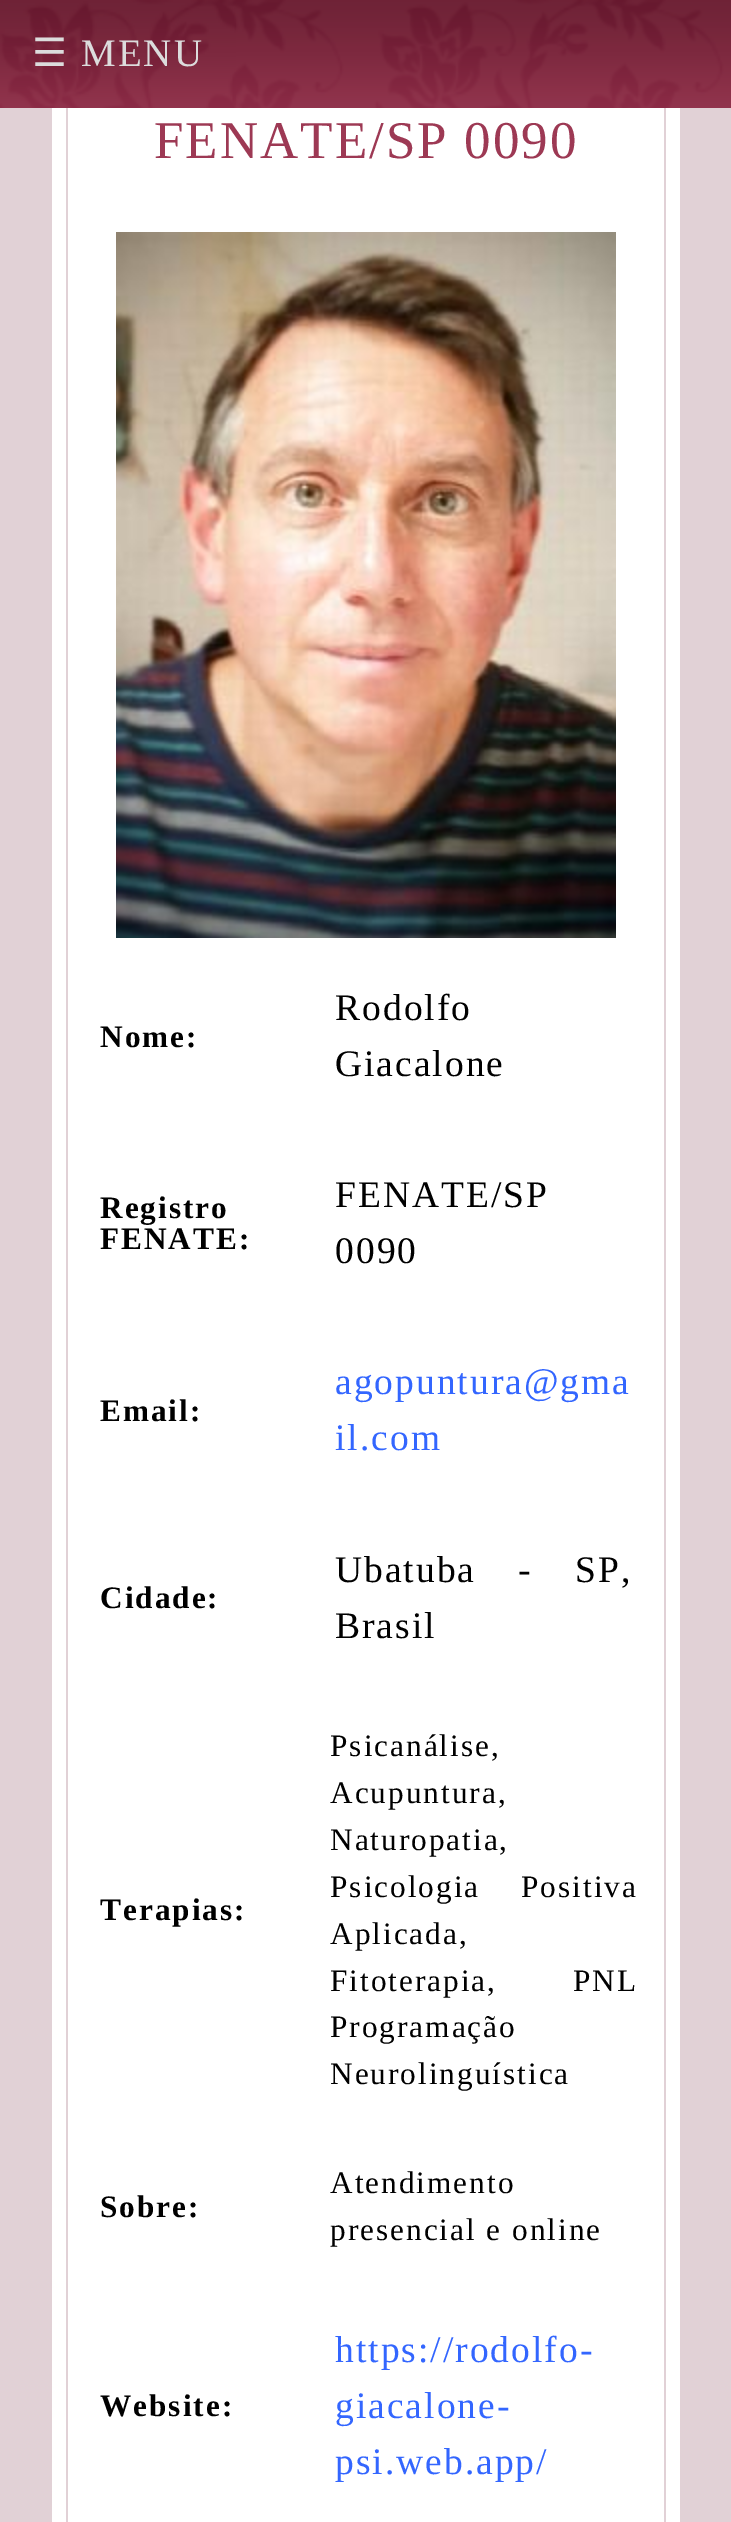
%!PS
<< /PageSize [731 2522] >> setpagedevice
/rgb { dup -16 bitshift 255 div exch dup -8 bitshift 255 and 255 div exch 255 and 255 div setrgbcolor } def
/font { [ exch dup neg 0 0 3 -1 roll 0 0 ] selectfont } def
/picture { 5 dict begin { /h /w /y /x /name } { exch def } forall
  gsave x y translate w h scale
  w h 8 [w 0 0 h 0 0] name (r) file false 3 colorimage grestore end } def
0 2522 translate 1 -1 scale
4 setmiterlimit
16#E1D1D6 rgb
0 0 731 2522 rectfill
(pic1.raw) 236 0 495 108 picture
(pic2.raw) 0 0 236 108 picture
/DejaVuSans-Regular 39 font
16#DCDCDC rgb
32 66 moveto 2 0 (☰) ashow
/LiberationSerif-Regular 39 font
81 66 moveto 2 0 (MENU) ashow
16#FFFFFF rgb
52 108 628 2414 rectfill
16#E1D1D6 rgb
664 108 2 2414 rectfill
66 108 2 2414 rectfill
/LiberationSerif-Regular 53 font
16#9D3954 rgb
154 158 moveto 2 0 (FENATE/SP 0090) ashow
(pic3.raw) 116 232 500 706 picture
/LiberationSerif-Bold 31.25 font
16#000000 rgb
100 1047 moveto 2 0 (Nome:) ashow
/LiberationSerif-Regular 37.5 font
335 1020 moveto 2 0 (Rodolfo) ashow
335 1076 moveto 2 0 (Giacalone) ashow
/LiberationSerif-Bold 31.25 font
100 1218 moveto 2 0 (Registro) ashow
100 1249 moveto 2 0 (FENATE:) ashow
/LiberationSerif-Regular 37.5 font
335 1207 moveto 2 0 (FENATE/SP) ashow
335 1263 moveto 2 0 (0090) ashow
/LiberationSerif-Bold 31.25 font
100 1421 moveto 2 0 (Email:) ashow
/LiberationSerif-Regular 37.5 font
16#3366FF rgb
335 1394 moveto 2 0 (agopuntura@gma) ashow
335 1450 moveto 2 0 (il.com) ashow
/LiberationSerif-Bold 31.25 font
16#000000 rgb
100 1608 moveto 2 0 (Cidade:) ashow
/LiberationSerif-Regular 37.5 font
335 1582 moveto 31 0 32 2 0 (Ubatuba - SP,) awidthshow
335 1638 moveto 2 0 (Brasil) ashow
/LiberationSerif-Bold 31.25 font
100 1920 moveto 2 0 (Terapias:) ashow
/LiberationSerif-Regular 31.25 font
330 1756 moveto 2 0 (Psicanálise,) ashow
330 1803 moveto 2 0 (Acupuntura,) ashow
330 1850 moveto 2 0 (Naturopatia,) ashow
330 1897 moveto 31 0 32 2 0 (Psicologia Positiva) awidthshow
330 1944 moveto 2 0 (Aplicada,) ashow
330 1991 moveto 66 0 32 2 0 (Fitoterapia, PNL) awidthshow
330 2037 moveto 2 0 (Programação) ashow
330 2084 moveto 2 0 (Neurolinguística) ashow
/LiberationSerif-Bold 31.25 font
100 2217 moveto 2 0 (Sobre:) ashow
/LiberationSerif-Regular 31.25 font
330 2193 moveto 2 0 (Atendimento) ashow
330 2240 moveto 2 0 (presencial e online) ashow
/LiberationSerif-Bold 31.25 font
100 2416 moveto 2 0 (Website:) ashow
/LiberationSerif-Regular 37.5 font
16#3366FF rgb
335 2362 moveto 2 0 (https://rodolfo-) ashow
335 2418 moveto 2 0 (giacalone-) ashow
335 2474 moveto 2 0 (psi.web.app/) ashow
showpage
